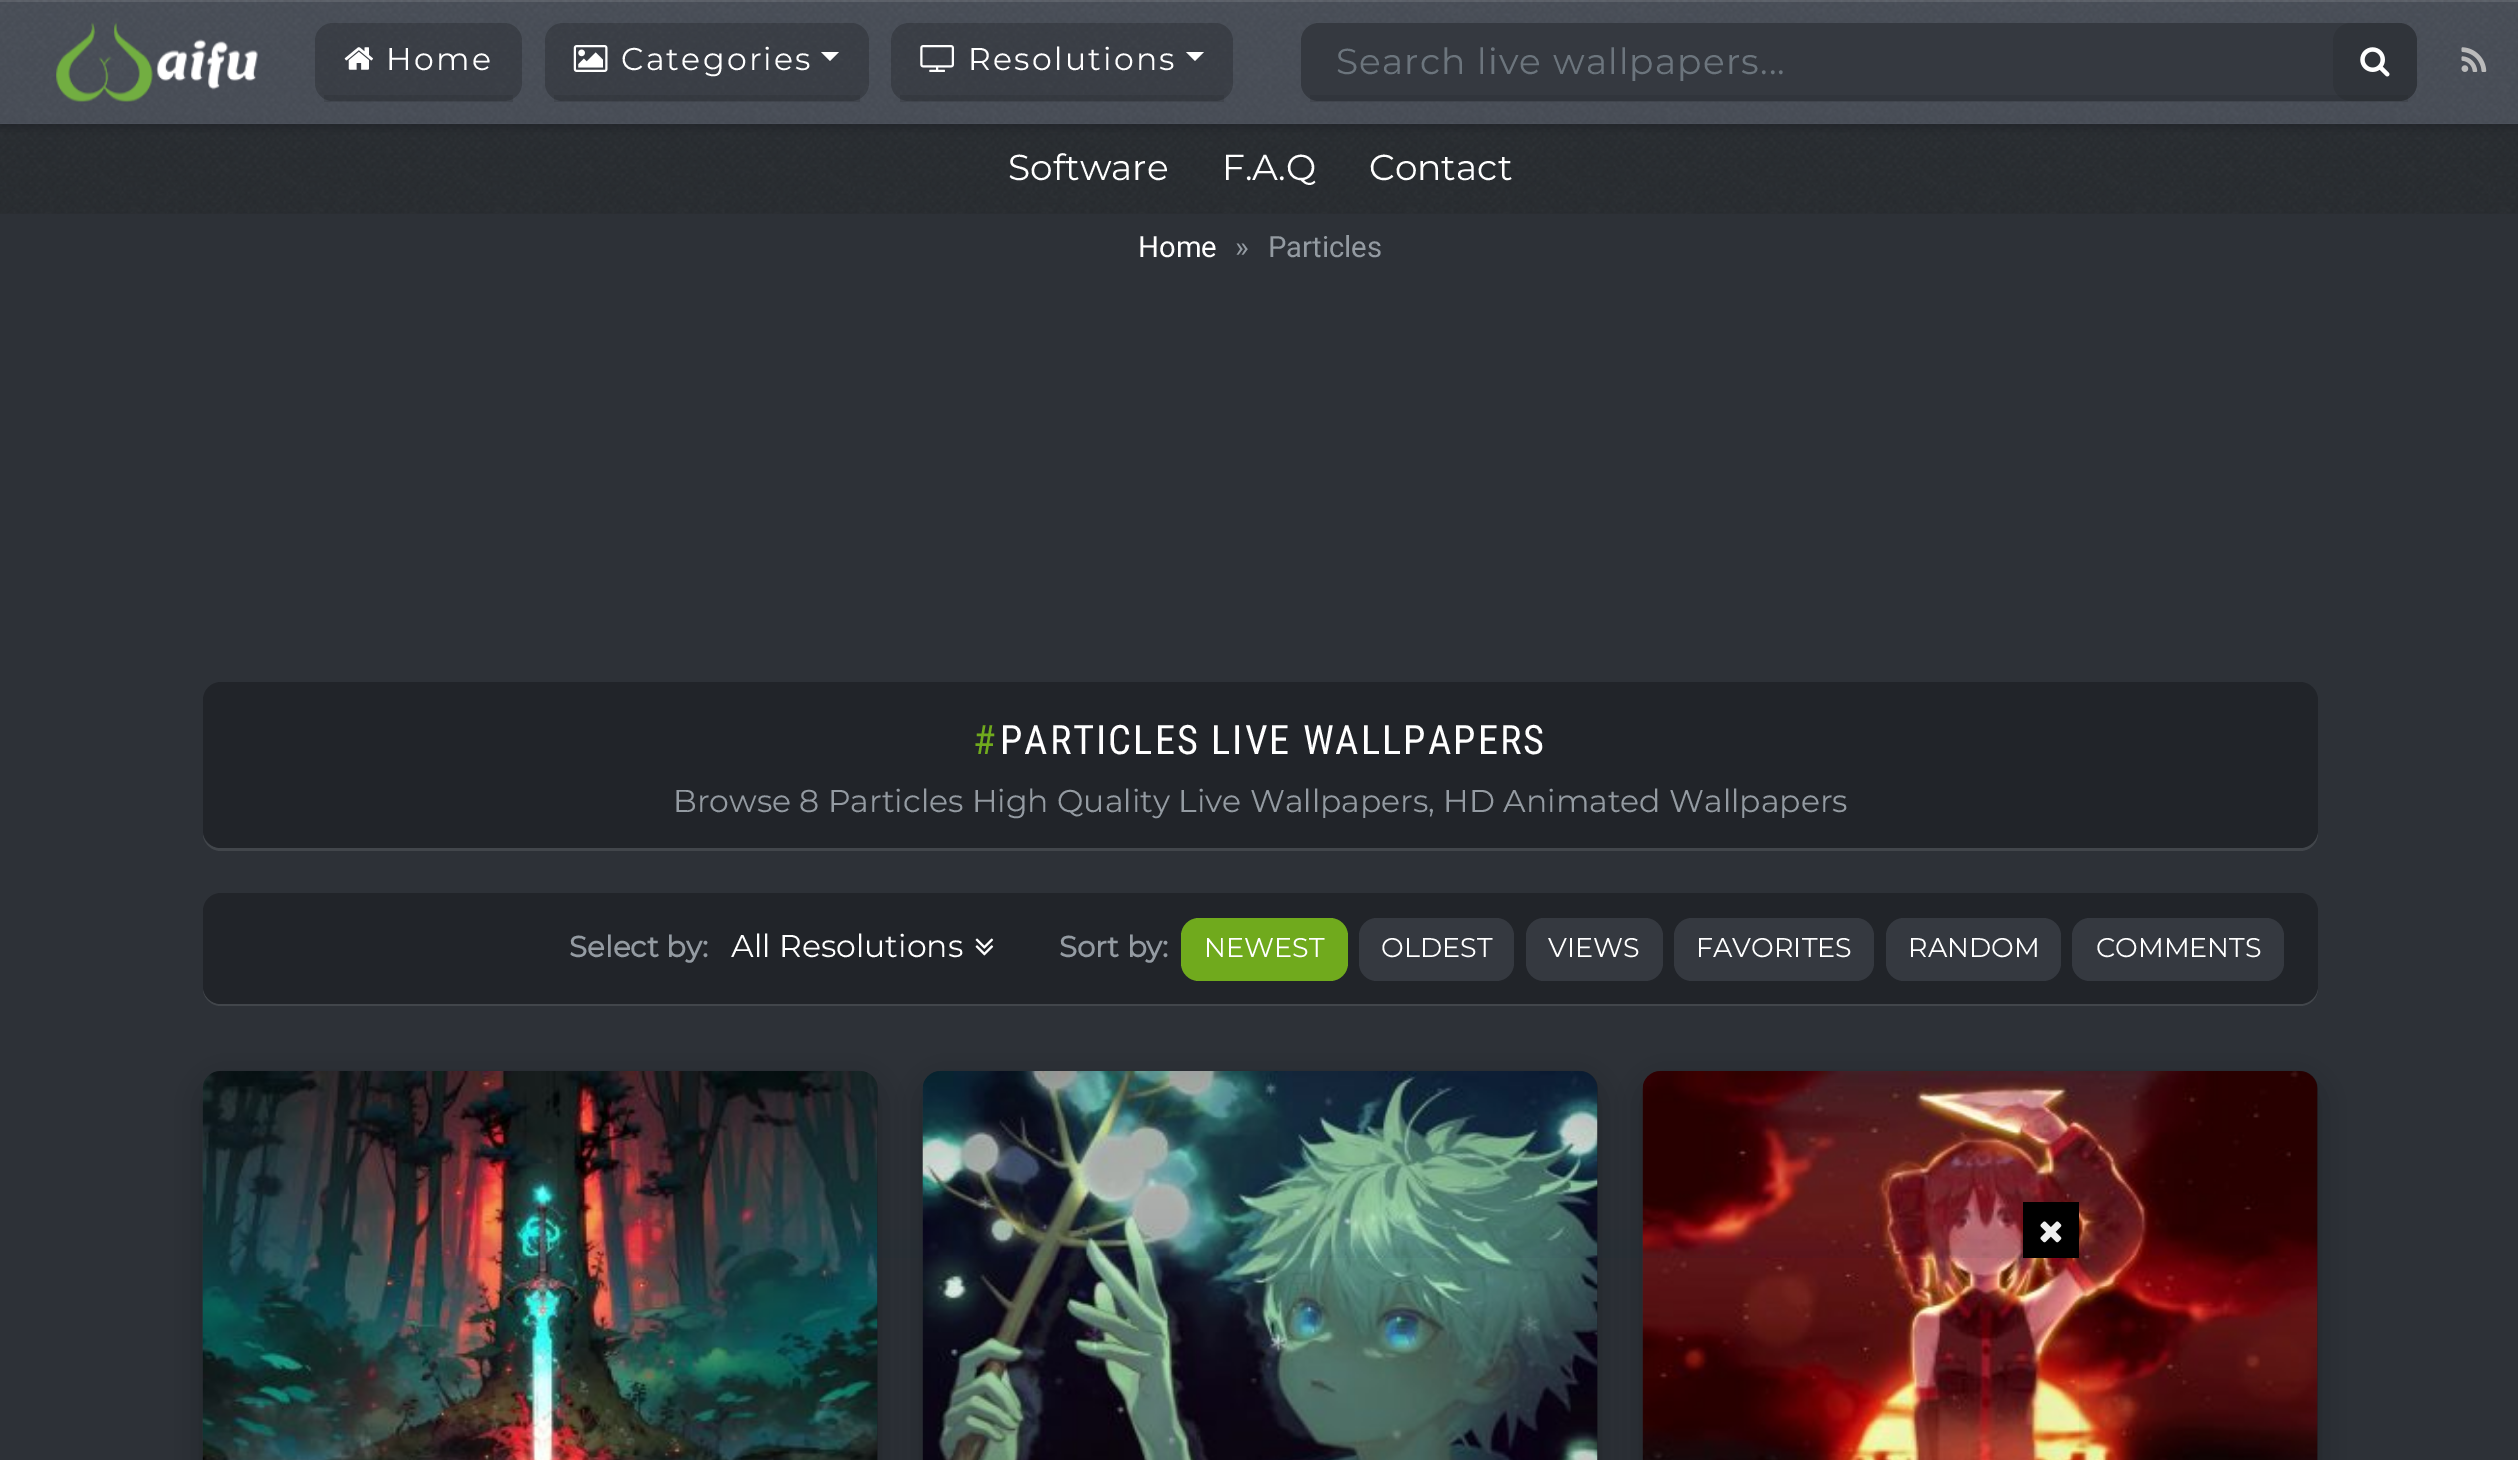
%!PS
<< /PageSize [2518 1460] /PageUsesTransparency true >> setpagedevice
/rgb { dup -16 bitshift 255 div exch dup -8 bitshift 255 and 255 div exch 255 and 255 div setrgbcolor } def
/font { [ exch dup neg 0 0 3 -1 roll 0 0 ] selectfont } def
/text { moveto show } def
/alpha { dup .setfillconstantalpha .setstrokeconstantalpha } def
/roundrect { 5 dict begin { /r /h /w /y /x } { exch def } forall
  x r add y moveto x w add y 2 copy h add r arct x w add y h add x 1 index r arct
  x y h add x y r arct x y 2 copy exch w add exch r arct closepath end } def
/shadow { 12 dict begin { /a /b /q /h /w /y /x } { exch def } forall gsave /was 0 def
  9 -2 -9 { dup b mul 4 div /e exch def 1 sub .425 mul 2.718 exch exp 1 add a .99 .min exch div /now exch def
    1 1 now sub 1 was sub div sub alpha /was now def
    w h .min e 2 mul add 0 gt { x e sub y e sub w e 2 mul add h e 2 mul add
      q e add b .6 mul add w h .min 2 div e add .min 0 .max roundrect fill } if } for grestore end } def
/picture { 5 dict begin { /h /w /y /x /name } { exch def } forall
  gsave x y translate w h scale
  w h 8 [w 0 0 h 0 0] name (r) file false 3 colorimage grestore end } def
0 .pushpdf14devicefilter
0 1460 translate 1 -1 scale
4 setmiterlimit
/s1 { /Montserrat-Thin 36 font 16#FFFFFF rgb } def
/s2 { /Roboto-Regular 29.25 font 16#FFFFFF rgb } def
/s3 { /Roboto-Regular 29.25 font 16#949BA2 rgb } def
/s4 { /Montserrat-Thin 31.5 font 16#949BA2 rgb } def
/s5 { /Montserrat-Bold 29.25 font 16#949BA2 rgb } def
/s6 { /Montserrat-Thin 31.5 font 16#FFFFFF rgb } def
/s7 { /Montserrat-Thin 27 font 16#FFFFFF rgb } def
16#2D3137 rgb
0 0 2518 1460 rectfill
(pic8.raw) 0 124 2518 90 picture
16#212429 rgb
0 5 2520 123 0 5.5 1 shadow
16#555B67 rgb
0 0 2518 124 rectfill
(pic1.raw) 0 0 2518 124 picture
0.1 alpha
16#FFFFFF rgb
0 0 2518 2 rectfill
1 alpha
(pic2.raw) 56 22 202 80 picture
0.2 alpha
16#000000 rgb
315 23 207 78 18 roundrect fill
0.24 alpha
16#26292E rgb
324 95 189 7 rectfill
1 alpha
(pic3.raw) 344 47 29 23 picture
/Montserrat-Thin 31.5 font
16#FFFFFF rgb
386 70 moveto 2.25 0 (Home) ashow
0.2 alpha
16#000000 rgb
545 23 324 78 18 roundrect fill
0.24 alpha
16#26292E rgb
554 95 306 7 rectfill
1 alpha
(pic4.raw) 573 45 35 27 picture
16#FFFFFF rgb
621 70 moveto 2.25 0 (Categories) ashow
821 52 moveto 839 52 lineto 830 61 lineto closepath fill
0.2 alpha
16#000000 rgb
891 23 342 78 18 roundrect fill
0.24 alpha
16#26292E rgb
900 95 324 7 rectfill
1 alpha
(pic5.raw) 920 45 34 27 picture
16#FFFFFF rgb
968 70 moveto 2.25 0 (Resolutions) ashow
1186 52 moveto 1204 52 lineto 1195 61 lineto closepath fill
16#353940 rgb
1301 23 1116 78 18 roundrect fill
0.24 alpha
16#26292E rgb
1310 95 1098 7 rectfill
/Montserrat-Thin 36 font
1 alpha
16#6C757D rgb
1336 74 moveto 1.1 0 (Search live wallpapers...) ashow
0.2 alpha
16#1E1F20 rgb
2333 23 84 78 18 roundrect fill
1 alpha
(pic6.raw) 2360 47 30 30 picture
(pic7.raw) 2461 47 26 25 picture
s1
(Software) 1008 180 text
(F.A.Q) 1222 180 text
(Contact) 1369 180 text
s2
(Home) 1138 257 text
s3
(») 1235 257 text
(Particles) 1268 257 text
16#42464B rgb
203 835 moveto 204 844 212 851 221 851 curveto 2300 851 lineto 2310 851 2318 843 2318 833 curveto 2318 702 lineto 2317 697 lineto 2318 830 lineto 2318 840 2309 848 2300 848 curveto 220 848 lineto 212 848 205 843 203 835 curveto closepath fill
16#212429 rgb
203 682 2115 166 18 roundrect fill
/RobotoCondensed-Regular 40.5 font
16#70AA1D rgb
973 754 moveto 2 0 (#) ashow
16#FFFFFF rgb
1000 754 moveto 2 0 (PARTICLES LIVE WALLPAPERS) ashow
s4
(Browse 8 Particles High Quality Live Wallpapers, HD Animated Wallpapers) 673 812 text
16#42464B rgb
203 990 moveto 204 999 212 1006 221 1006 curveto 2300 1006 lineto 2310 1006 2318 998 2318 988 curveto 2318 914 lineto 2317 909 lineto 2318 986 lineto 2318 995 2309 1004 2300 1004 curveto 220 1004 lineto 212 1004 205 998 203 990 curveto closepath fill
16#212429 rgb
203 893 2115 111 18 roundrect fill
s5
(Select by:) 569 957 text
s6
(All Resolutions) 731 957 text
(pic9.raw) 975 938 19 18 picture
s5
(Sort by:) 1059 957 text
16#70AA1D rgb
1181 918 167 63 18 roundrect fill
s7
(NEWEST) 1204 957 text
16#353940 rgb
1359 918 155 63 18 roundrect fill
s7
(OLDEST) 1381 957 text
16#353940 rgb
1526 918 137 63 18 roundrect fill
s7
(VIEWS) 1548 957 text
16#353940 rgb
1674 918 200 63 18 roundrect fill
s7
(FAVORITES) 1696 957 text
16#353940 rgb
1886 918 175 63 18 roundrect fill
s7
(RANDOM) 1908 957 text
16#353940 rgb
2072 918 212 63 18 roundrect fill
s7
(COMMENTS) 2096 957 text
16#000000 rgb
203 1082 675 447 18 17 0.25 shadow
16#212429 rgb
203 1071 675 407 18 roundrect fill
(pic10.raw) 202 1071 676 389 picture
16#000000 rgb
923 1082 675 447 18 17 0.25 shadow
16#212429 rgb
923 1071 675 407 18 roundrect fill
(pic11.raw) 922 1071 676 389 picture
16#000000 rgb
1643 1082 675 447 18 17 0.25 shadow
16#212429 rgb
1643 1071 675 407 18 roundrect fill
(pic12.raw) 1642 1071 676 389 picture
gsave
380 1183 moveto 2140 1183 lineto 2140 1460 lineto 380 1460 lineto closepath 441 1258 moveto 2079 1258 lineto 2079 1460 lineto 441 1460 lineto closepath eoclip newpath
16#09204C rgb
441 1244 1638 203 0 20 0.1 shadow
grestore
16#000000 rgb
2023 1202 56 56 rectfill
(pic13.raw) 2040 1221 22 22 picture
.poppdf14devicefilter showpage
